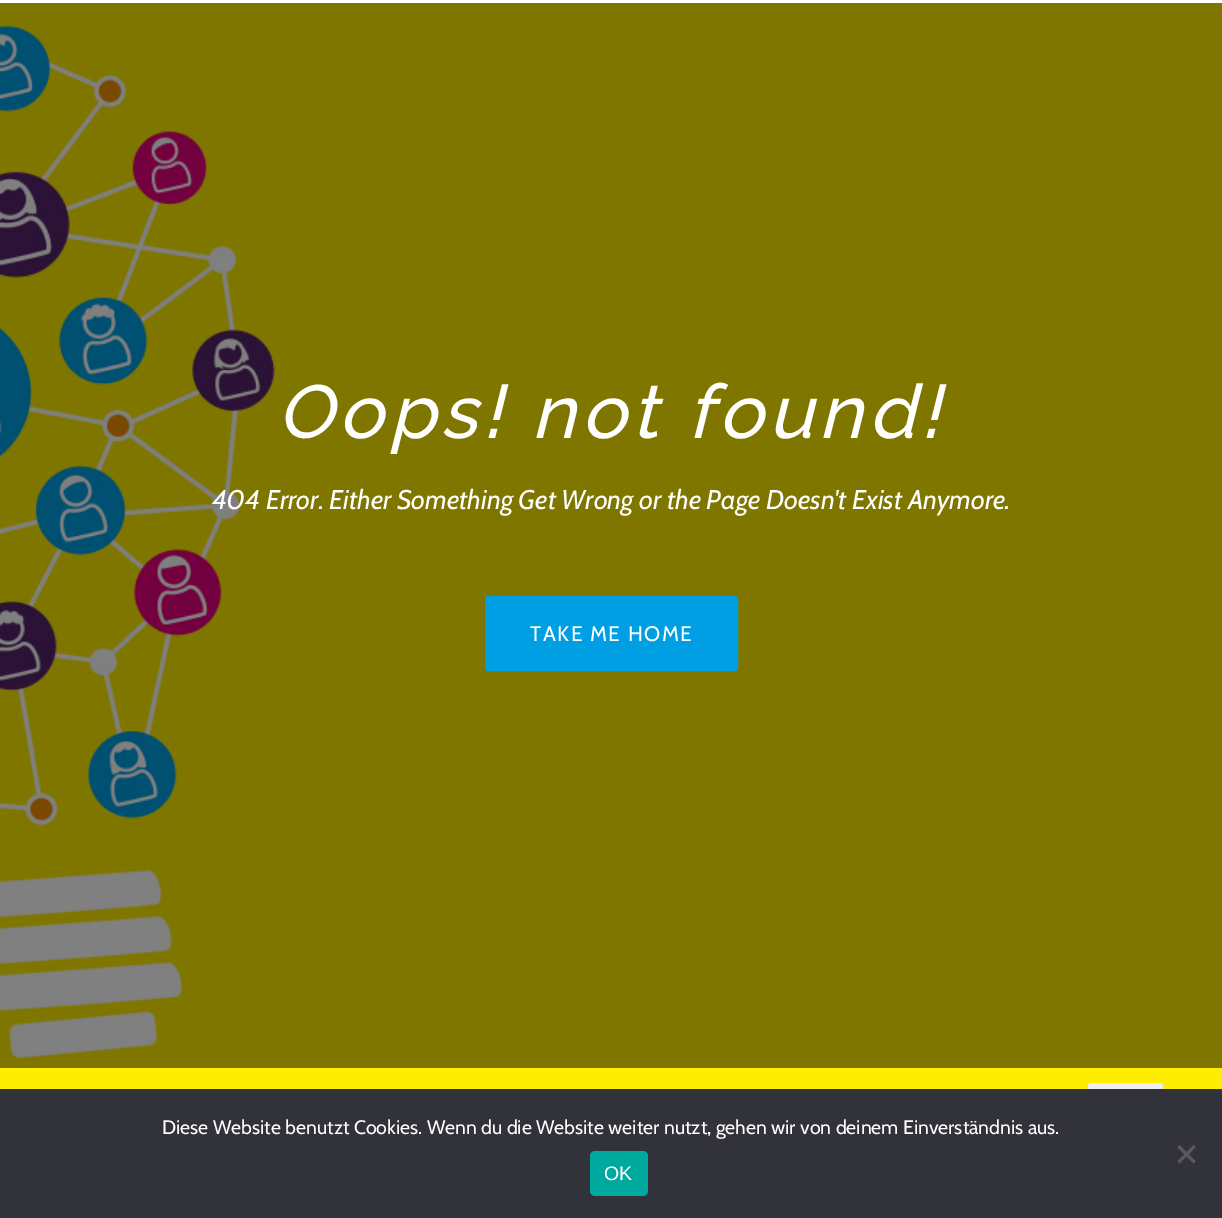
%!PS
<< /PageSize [1222 1218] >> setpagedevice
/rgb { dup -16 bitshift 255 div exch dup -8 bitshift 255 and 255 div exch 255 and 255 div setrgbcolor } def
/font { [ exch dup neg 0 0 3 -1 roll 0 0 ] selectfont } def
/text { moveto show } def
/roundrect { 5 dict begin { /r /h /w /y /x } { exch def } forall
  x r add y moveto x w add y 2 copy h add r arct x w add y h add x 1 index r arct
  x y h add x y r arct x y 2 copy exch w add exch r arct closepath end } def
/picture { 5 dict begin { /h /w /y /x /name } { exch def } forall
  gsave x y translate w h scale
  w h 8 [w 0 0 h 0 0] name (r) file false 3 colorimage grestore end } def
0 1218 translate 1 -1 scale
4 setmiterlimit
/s1 { /Cabin-Italic 27 font 16#FFFFFF rgb } def
/s2 { /Cabin-Regular 19.5 font 16#FFFFFF rgb } def
/s3 { /LiberationSans-Regular 19.5 font 16#FFFFFF rgb } def
16#FFFFFF rgb
0 0 1222 1218 rectfill
(pic1.raw) 0 3 1222 1065 picture
/Raleway-MediumItalic 75 font
277 438 moveto 5.25 0 (Oops! not found!) ashow
s1
(404 Error. Either Something Get Wrong or the Page Doesn't Exist Anymore.) 212 509 text
16#009EE3 rgb
486 597 251 73 2 roundrect gsave fill grestore
2 setlinewidth
stroke
/Cabin-Regular 21 font
16#FFFFFF rgb
530 641 moveto 1.5 0 (TAKE ME HOME) ashow
16#FFED00 rgb
0 1068 1222 21 rectfill
16#EEEEEE rgb
1088 1083 75 75 3 roundrect fill
16#32323A rgb
0 1089 1222 129 rectfill
s2
(Diese Website benutzt Cookies. Wenn du die Website weiter nutzt, gehen wir von deinem Einverständnis aus.) 162 1134 text
16#59595D rgb
1193.5 1145 moveto 1195.5 1147.5 lineto 1179.5 1163.5 lineto 1177.5 1161 lineto closepath fill
1177.5 1147.5 moveto 1179.5 1145 lineto 1195.5 1161 lineto 1193.5 1163.5 lineto closepath fill
16#00A99D rgb
590 1151 58 45 5 roundrect fill
s3
(OK) 604 1180 text
showpage
